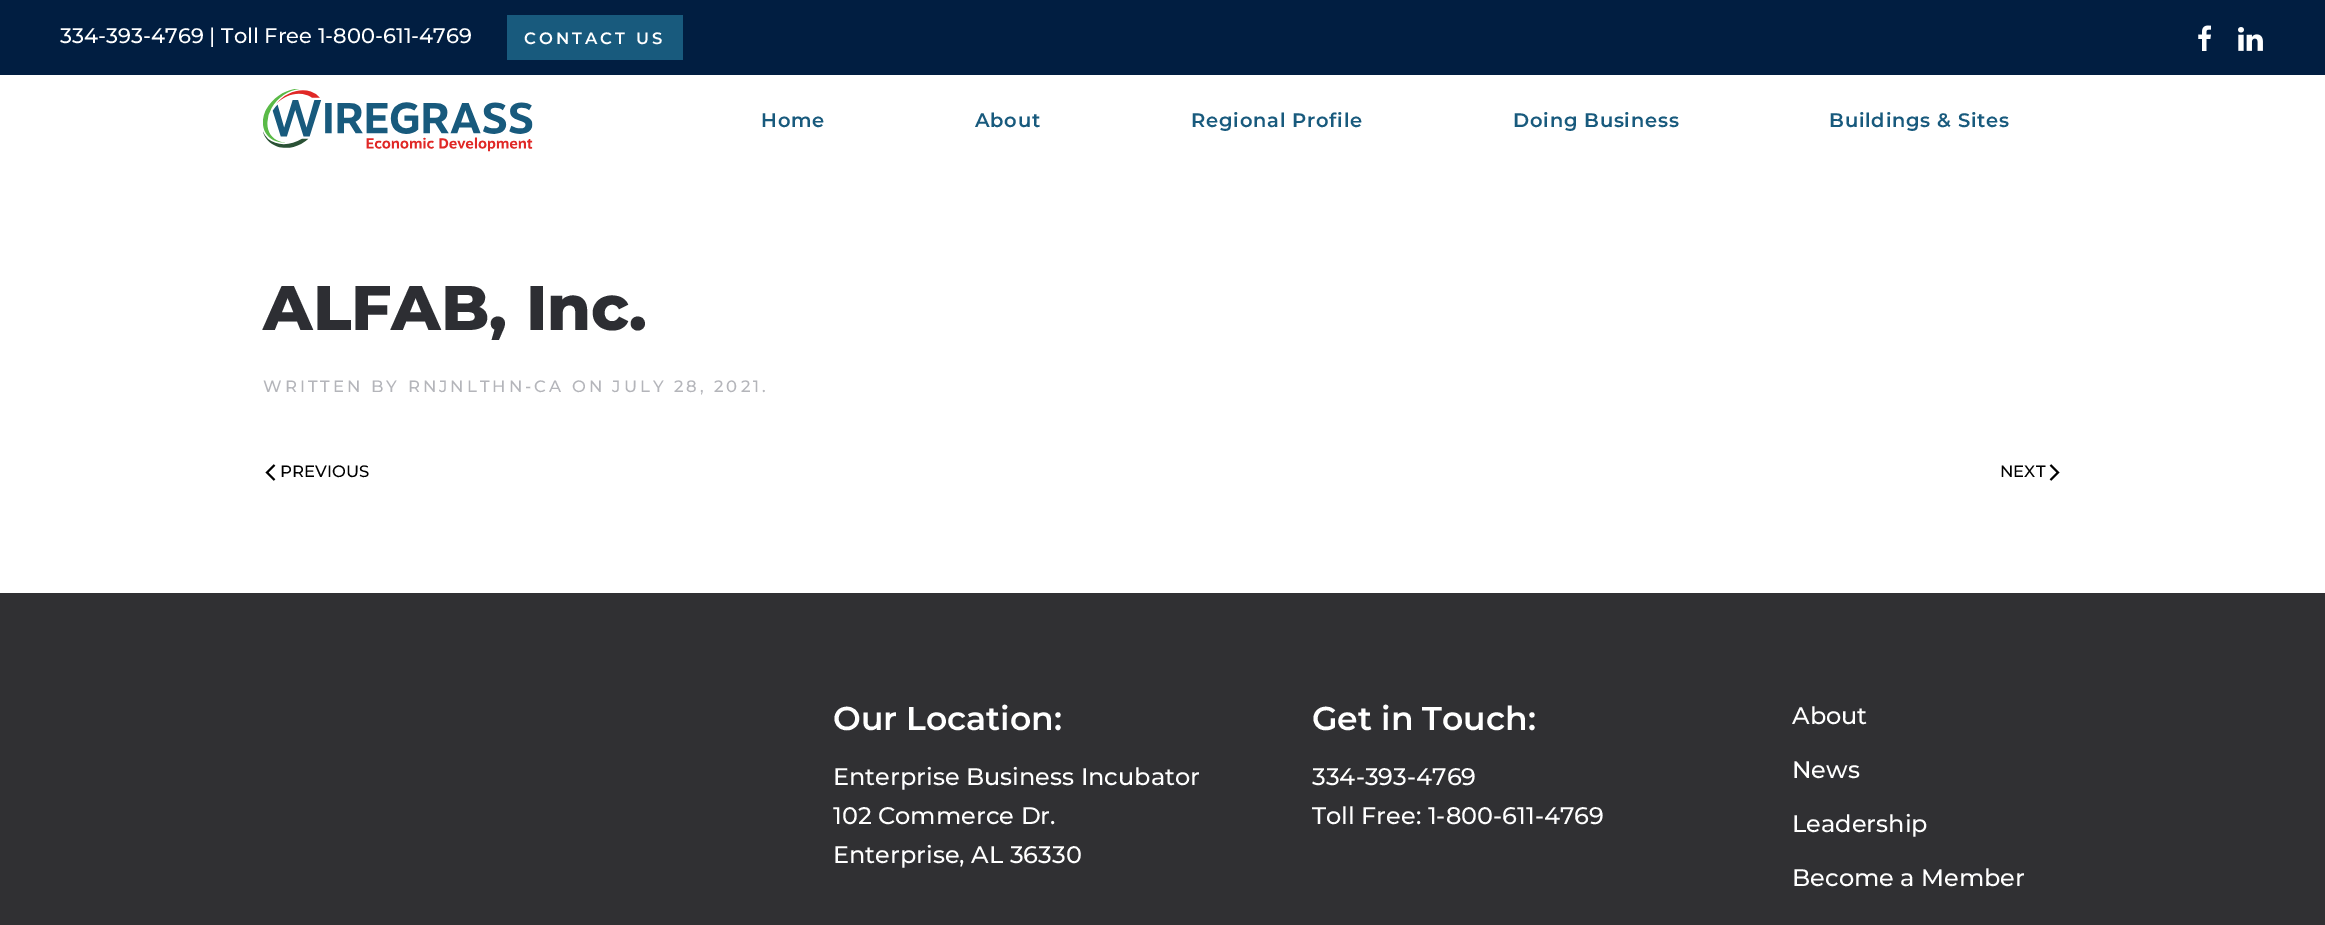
%!PS
<< /PageSize [2325 925] >> setpagedevice
/rgb { dup -16 bitshift 255 div exch dup -8 bitshift 255 and 255 div exch 255 and 255 div setrgbcolor } def
/font { [ exch dup neg 0 0 3 -1 roll 0 0 ] selectfont } def
/text { moveto show } def
/picture { 5 dict begin { /h /w /y /x /name } { exch def } forall
  gsave x y translate w h scale
  w h 8 [w 0 0 h 0 0] name (r) file false 3 colorimage grestore end } def
0 925 translate 1 -1 scale
4 setmiterlimit
/s1 { /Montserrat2-Thin 21 font 16#FFFFFF rgb } def
/s2 { /Montserrat-Thin 63 font 16#2D2E33 rgb } def
/s3 { /Montserrat2-Thin 16.5 font 16#000000 rgb } def
/s4 { /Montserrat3-Thin 33 font 16#FFFFFF rgb } def
/s5 { /Montserrat2-Thin 24 font 16#FFFFFF rgb } def
16#FFFFFF rgb
0 0 2325 925 rectfill
16#011E41 rgb
0 0 2325 75 rectfill
s1
(334-393-4769 | Toll Free 1-800-611-4769) 60 43 text
16#185A7D rgb
507 15 176 45 rectfill
/Montserrat3-Thin 16.5 font
16#FFFFFF rgb
524 44 moveto 3 0 (CONTACT US) ashow
(pic1.raw) 2198 25 13 26 picture
(pic2.raw) 2238 27 25 24 picture
(pic3.raw) 263 89 270 63 picture
/Montserrat3-Thin 19.5 font
16#185A7D rgb
761 127 moveto 0.75 0 (Home) ashow
975 127 moveto 0.75 0 (About) ashow
1191 127 moveto 0.75 0 (Regional Profile) ashow
1513 127 moveto 0.75 0 (Doing Business) ashow
1829 127 moveto 0.75 0 (Buildings & Sites) ashow
s2
(ALFAB, Inc.) 263 330 text
/Montserrat2-Thin 16.5 font
16#B4B5BA rgb
263 392 moveto 3 0 (WRITTEN BY RNJNLTHN-CA ON JULY 28, 2021.) ashow
16#000000 rgb
1.8 setlinewidth
274.5 465 moveto 267 472.5 lineto 274.5 480 lineto stroke
(PREVIOUS) 280 477 text
(NEXT) 2000 477 text
2050.5 465 moveto 2058 472.5 lineto 2050.5 480 lineto stroke
16#303033 rgb
0 593 2325 332 rectfill
s4
(Our Location:) 833 730 text
s5
(Enterprise Business Incubator) 833 785 text
(102 Commerce Dr.) 833 824 text
(Enterprise, AL 36330) 833 863 text
s4
(Get in Touch:) 1312 730 text
s5
(334-393-4769) 1312 785 text
(Toll Free: 1-800-611-4769) 1312 824 text
(About) 1792 724 text
(News) 1792 778 text
(Leadership) 1792 832 text
(Become a Member) 1792 886 text
showpage
